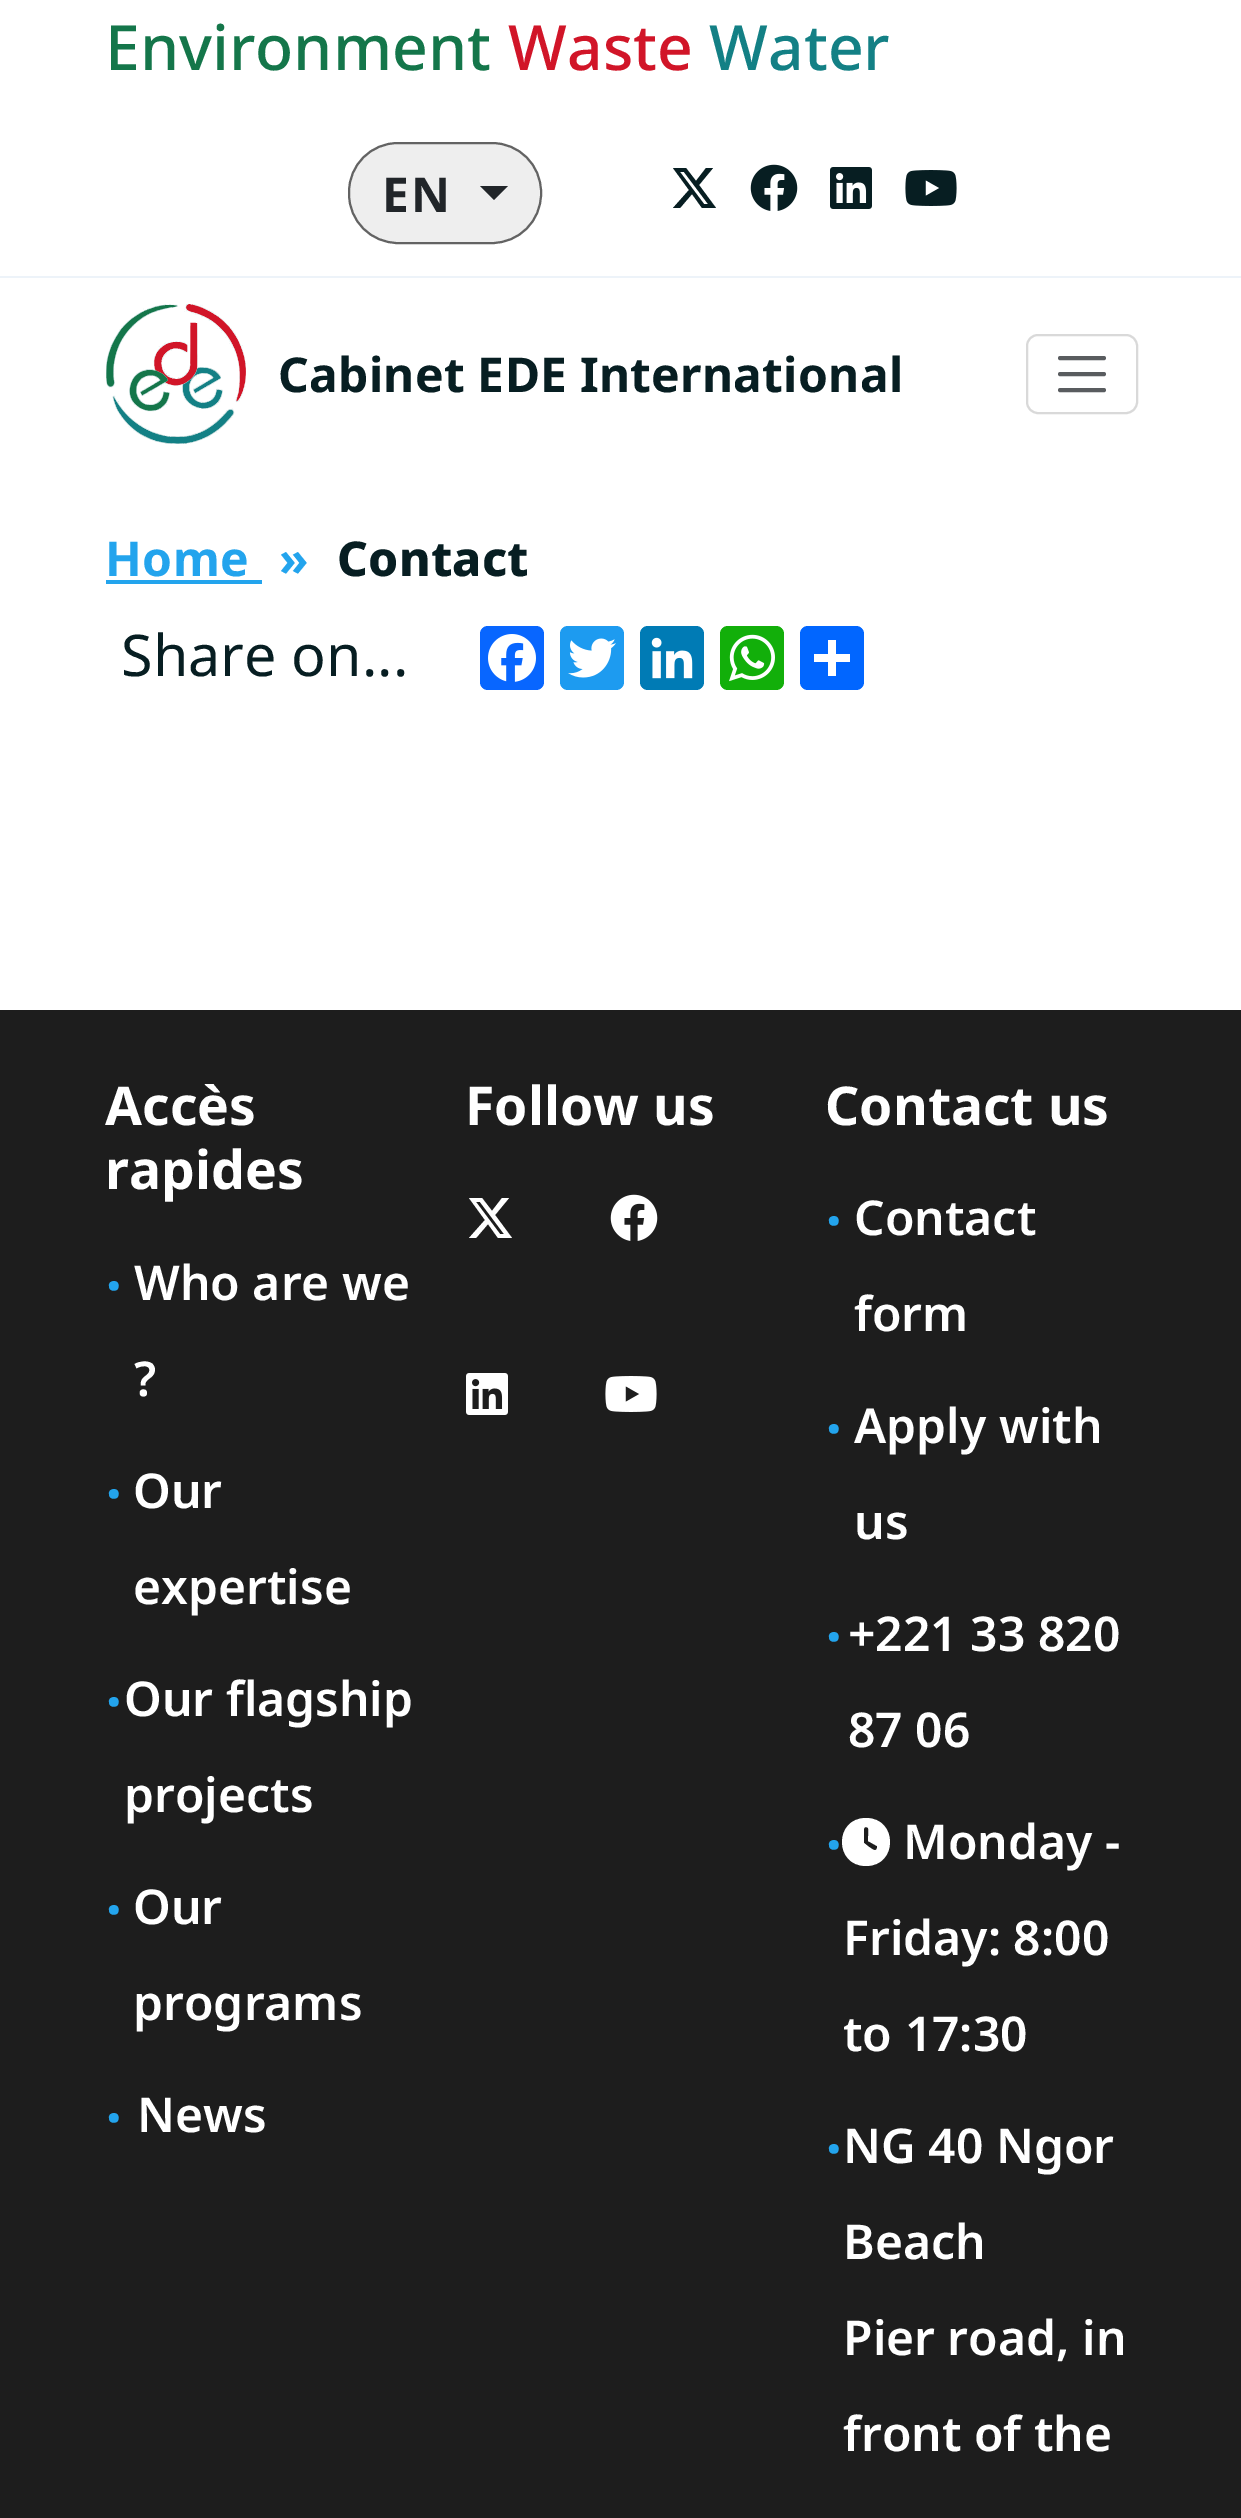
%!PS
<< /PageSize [1241 2518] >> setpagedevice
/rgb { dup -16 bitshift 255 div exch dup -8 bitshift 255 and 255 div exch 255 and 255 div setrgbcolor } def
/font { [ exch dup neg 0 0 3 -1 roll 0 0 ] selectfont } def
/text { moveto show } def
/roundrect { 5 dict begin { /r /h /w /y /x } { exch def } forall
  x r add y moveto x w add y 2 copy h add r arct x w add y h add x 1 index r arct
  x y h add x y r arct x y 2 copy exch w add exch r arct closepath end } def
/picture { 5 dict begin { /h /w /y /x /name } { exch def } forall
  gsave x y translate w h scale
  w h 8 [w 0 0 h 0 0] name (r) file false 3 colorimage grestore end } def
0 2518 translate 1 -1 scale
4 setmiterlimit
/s1 { /NotoSans-Medium 62.5 font 16#14764A rgb } def
/s2 { /NotoSans-Medium 62.5 font 16#D11528 rgb } def
/s3 { /NotoSans-Medium 62.5 font 16#138085 rgb } def
/s4 { /NotoSans-Regular 57.5 font 16#071E22 rgb } def
/s5 { /NotoSans-Bold 53.5 font 16#FFFFFF rgb } def
/s6 { /NotoSans-SemiBold 64 font 16#23A4ED rgb } def
/s7 { /NotoSans-SemiBold 48 font 16#FFFFFF rgb } def
16#FFFFFF rgb
0 0 1241 2518 rectfill
s1
(Environment) 105 70 text
s2
(Waste) 508 70 text
s3
(Water) 709 70 text
16#EEEEEE rgb
349 143 192 100 49 roundrect gsave fill grestore
16#636363 rgb
2 setlinewidth
stroke
/NotoSans-Bold 48 font
16#212529 rgb
382 212 moveto 2 0 (EN) ashow
480 186 moveto 508 186 lineto 494 200 lineto closepath fill
16#071E22 rgb
706 168 moveto 713 168 lineto 699 185 lineto 716 208 lineto 702 208 lineto 692 194 lineto 680 208 lineto 673 208 lineto 689 190 lineto 673 168 lineto 686 168 lineto 696 181 lineto closepath 704 204 moveto 708 204 lineto 684 172 lineto 680 172 lineto closepath fill
(pic1.raw) 750 164 48 47 picture
(pic2.raw) 830 167 42 42 picture
(pic3.raw) 905 170 52 36 picture
16#EDF3F9 rgb
0 276 1241 2 rectfill
(pic4.raw) 106 304 140 140 picture
16#071E22 rgb
278 392 moveto 0.25 0 (Cabinet EDE International) ashow
16#D9D9D9 rgb
1027 335 110 78 11 roundrect stroke
16#595C5F rgb
4 setlinewidth
1 setlinecap
1060 358 moveto 1104 358 lineto 1060 374 moveto 1104 374 lineto 1060 390 moveto 1104 390 lineto stroke
16#23A4ED rgb
105 576 moveto 0.5 0 (Home) ashow
106 580 156 4 rectfill
279 576 moveto 0.25 0 (») ashow
/NotoSans-ExtraBold 48 font
16#071E22 rgb
337 576 moveto 0.25 0 (Contact) ashow
s4
(Share on...) 121 676 text
16#0866FF rgb
480 626 64 64 8 roundrect fill
(pic5.raw) 488 634 48 48 picture
16#1D9BF0 rgb
560 626 64 64 8 roundrect fill
(pic6.raw) 568 638 48 40 picture
16#007BB5 rgb
640 626 64 64 8 roundrect fill
(pic7.raw) 651 637 42 42 picture
16#12AF0A rgb
720 626 64 64 8 roundrect fill
(pic8.raw) 729 634 46 48 picture
16#0166FF rgb
800 626 64 64 8 roundrect fill
16#FFFFFF rgb
828 640 8 36 rectfill
814 654 36 8 rectfill
16#1D1D1D rgb
0 1010 1241 1508 rectfill
s5
(Accès) 105 1125 text
(rapides) 105 1189 text
s6
(.) 105 1290 text
s7
(Who are we) 134 1300 text
(?) 134 1396 text
s6
(.) 105 1498 text
s7
(Our) 133 1508 text
(expertise) 133 1604 text
s6
(.) 105 1706 text
s7
(Our flagship) 124 1716 text
(projects) 124 1812 text
s6
(.) 105 1914 text
s7
(Our) 133 1924 text
(programs) 133 2020 text
s6
(.) 105 2122 text
s7
(News) 137 2132 text
s5
(Follow us) 465 1125 text
502 1198 moveto 509 1198 lineto 495 1215 lineto 512 1238 lineto 498 1238 lineto 488 1224 lineto 476 1238 lineto 469 1238 lineto 485 1220 lineto 469 1198 lineto 482 1198 lineto 492 1211 lineto closepath 500 1234 moveto 504 1234 lineto 480 1202 lineto 476 1202 lineto closepath fill
(pic9.raw) 610 1194 48 47 picture
(pic10.raw) 466 1373 42 42 picture
(pic11.raw) 605 1376 52 36 picture
(Contact us) 825 1125 text
s6
(.) 825 1225 text
s7
(Contact) 854 1235 text
(form) 854 1331 text
s6
(.) 825 1433 text
s7
(Apply with) 854 1443 text
(us) 854 1539 text
s6
(.) 825 1641 text
s7
(+221 33 820) 848 1651 text
(87 06) 848 1747 text
s6
(.) 825 1849 text
16#FFFFFF rgb
866 1818 moveto 898 1818 898 1866 866 1866 curveto 834 1866 834 1818 866 1818 curveto closepath 864 1829 moveto 864 1843 lineto 869 1847 lineto 871 1848 876 1853 877 1848 curveto 877 1846 lineto 868 1841 lineto 868 1838 869 1829 868 1828 curveto 866 1826 864 1827 864 1829 curveto closepath fill
s7
(Monday -) 903 1859 text
(Friday: 8:00) 843 1955 text
(to 17:30) 843 2051 text
s6
(.) 825 2153 text
s7
(NG 40 Ngor) 843 2163 text
(Beach) 843 2259 text
(Pier road, in) 843 2355 text
(front of the) 843 2451 text
showpage
